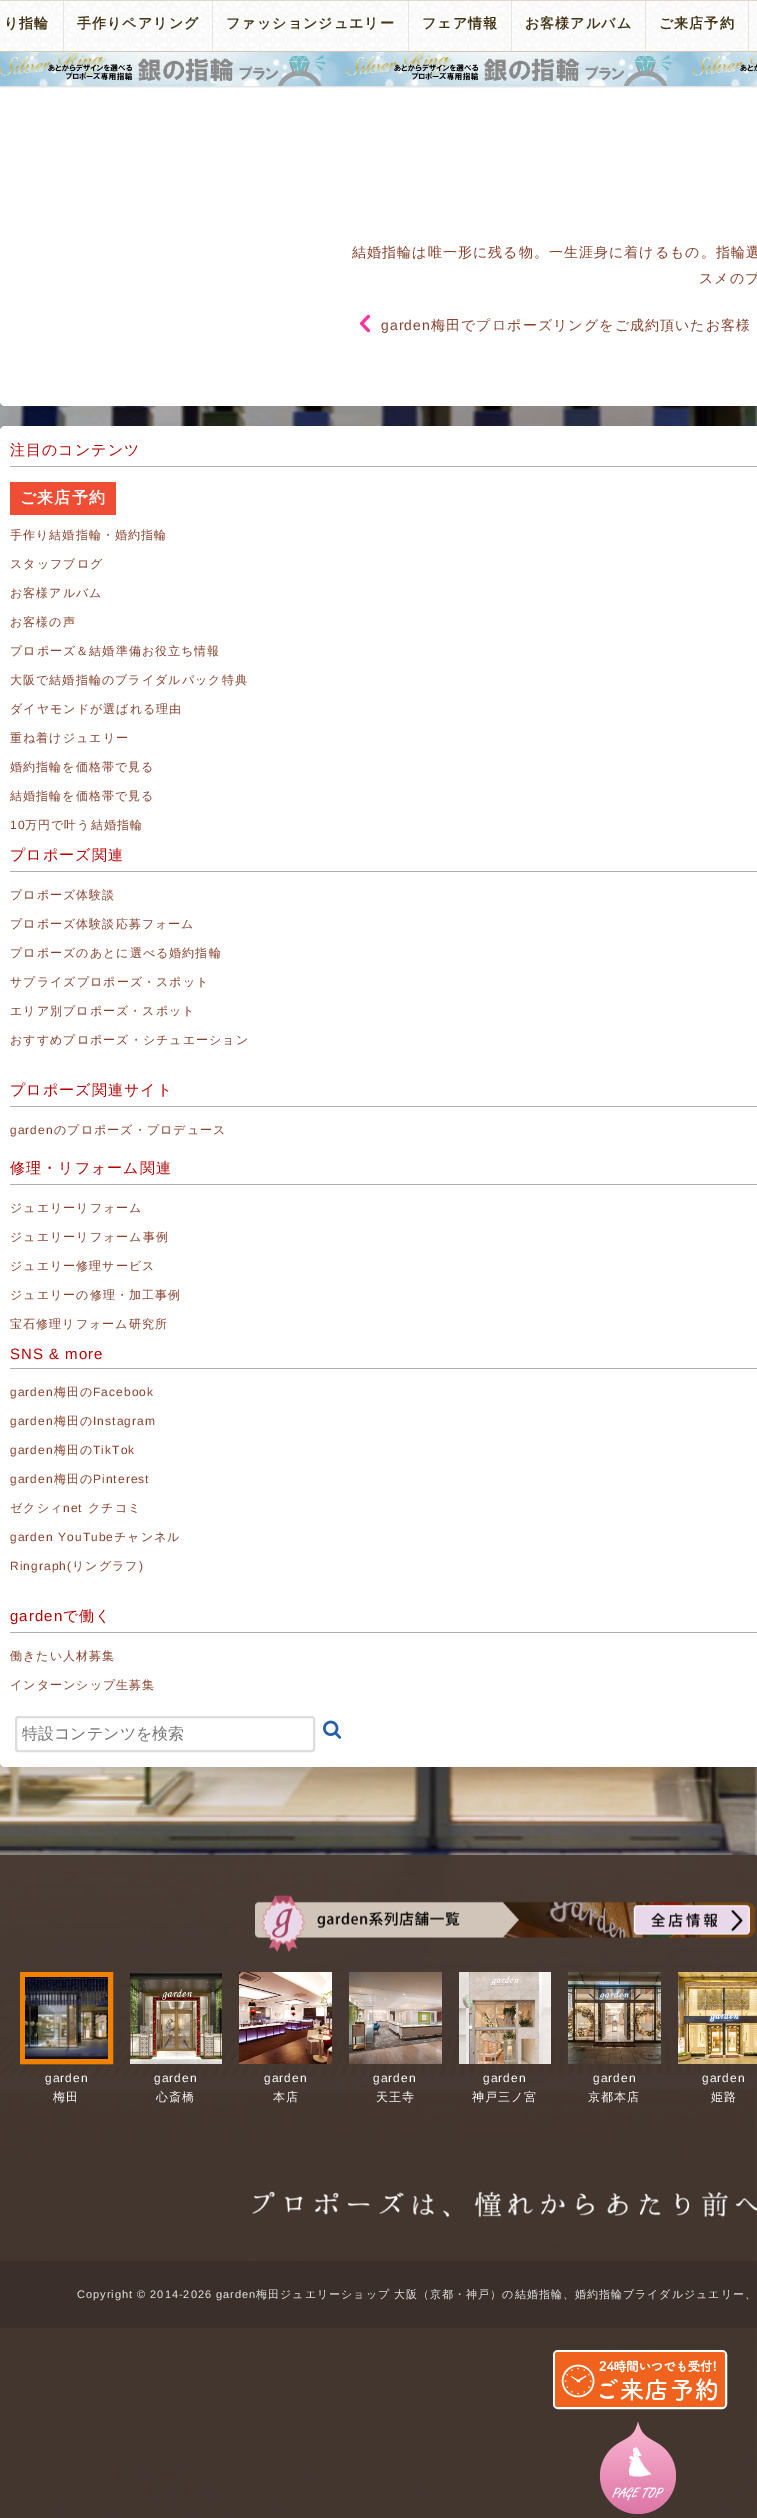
%!PS
<< /PageSize [757 2518] /PageUsesTransparency true >> setpagedevice
/rgb { dup -16 bitshift 255 div exch dup -8 bitshift 255 and 255 div exch 255 and 255 div setrgbcolor } def
/font { [ exch dup neg 0 0 3 -1 roll 0 0 ] selectfont } def
/text { moveto show } def
/alpha { dup .setfillconstantalpha .setstrokeconstantalpha } def
/roundrect { 5 dict begin { /r /h /w /y /x } { exch def } forall
  x r add y moveto x w add y 2 copy h add r arct x w add y h add x 1 index r arct
  x y h add x y r arct x y 2 copy exch w add exch r arct closepath end } def
/shadow { 12 dict begin { /a /b /q /h /w /y /x } { exch def } forall gsave /was 0 def
  9 -2 -9 { dup b mul 4 div /e exch def 1 sub .425 mul 2.718 exch exp 1 add a .99 .min exch div /now exch def
    1 1 now sub 1 was sub div sub alpha /was now def
    w h .min e 2 mul add 0 gt { x e sub y e sub w e 2 mul add h e 2 mul add
      q e add b .6 mul add w h .min 2 div e add .min 0 .max roundrect fill } if } for grestore end } def
/picture { 5 dict begin { /h /w /y /x /name } { exch def } forall
  gsave x y translate w h scale
  w h 8 [w 0 0 h 0 0] name (r) file false 3 colorimage grestore end } def
0 .pushpdf14devicefilter
0 2518 translate 1 -1 scale
4 setmiterlimit
/s1 { /WenQuanYiZenHei-Medium 16 font 16#757575 rgb } def
16#FFFFFF rgb
0 0 757 2518 rectfill
(pic1.raw) 0 401 757 2117 picture
0 -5 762 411 5 roundrect fill
(pic4.raw) 445 1 312 50 picture
gsave
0 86 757 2 rectclip
16#000000 rgb
0 2 757 85 0 1 0.15 shadow
grestore
0.98 alpha
445 1 312 50 rectfill
1 alpha
(pic2.raw) 0 1 757 50 picture
16#DED9D0 rgb
0 0 757 1 rectfill
0.62 alpha
16#FFFFFF rgb
0 1 757 50 rectfill
1 alpha
16#E7E5E2 rgb
63 1 1 50 rectfill
/WenQuanYiZenHei-Bold 14 font
16#423414 rgb
4 28 moveto 1.05 0 (り指輪) ashow
16#E7E5E2 rgb
212 1 1 50 rectfill
16#423414 rgb
77 28 moveto 1.05 0 (手作りペアリング) ashow
16#E7E5E2 rgb
408 1 1 50 rectfill
16#423414 rgb
226 28 moveto 1.05 0 (ファッションジュエリー) ashow
16#E7E5E2 rgb
511 1 1 50 rectfill
16#423414 rgb
422 28 moveto 1.05 0 (フェア情報) ashow
16#E7E5E2 rgb
645 1 1 50 rectfill
16#423414 rgb
525 28 moveto 1.05 0 (お客様アルバム) ashow
16#E7E5E2 rgb
748 1 1 50 rectfill
16#423414 rgb
659 28 moveto 1.05 0 (ご来店予約) ashow
16#D3C8B6 rgb
0 51 757 1 rectfill
(pic3.raw) 0 52 757 34 picture
/WenQuanYiZenHei-Medium 14 font
16#86412B rgb
352 257 moveto 1.05 0 (結婚指輪は唯一形に残る物。一生涯身に着けるもの。指輪選) ashow
699 283 moveto 1.05 0 (スメのブ) ashow
(pic5.raw) 359 314 12 19 picture
/LiberationSans-Regular 14 font
381 330 moveto 1.05 0 (garden) ashow
/WenQuanYiZenHei-Medium 14 font
431 330 moveto 1.05 0 (梅田でプロポーズリングをご成約頂いたお客様) ashow
16#FFFFFF rgb
0 426 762 1341 5 roundrect fill
16#ADADAD rgb
10 466 747 1 rectfill
/WenQuanYiZenHei-Medium 15 font
16#B50000 rgb
10 455 moveto 1.05 0 (注目のコンテンツ) ashow
16#EF4D34 rgb
10 482 106 33 rectfill
/WenQuanYiZenHei-Bold 16 font
16#FFFFFF rgb
20 503 moveto 1.05 0 (ご来店予約) ashow
/WenQuanYiZenHei-Medium 12 font
16#86412B rgb
10 539 moveto 1.05 0 (手作り結婚指輪・婚約指輪) ashow
10 568 moveto 1.05 0 (スタッフブログ) ashow
10 597 moveto 1.05 0 (お客様アルバム) ashow
10 626 moveto 1.05 0 (お客様の声) ashow
10 655 moveto 1.05 0 (プロポーズ＆結婚準備お役立ち情報) ashow
10 684 moveto 1.05 0 (大阪で結婚指輪のブライダルパック特典) ashow
10 713 moveto 1.05 0 (ダイヤモンドが選ばれる理由) ashow
10 742 moveto 1.05 0 (重ね着けジュエリー) ashow
10 771 moveto 1.05 0 (婚約指輪を価格帯で見る) ashow
10 800 moveto 1.05 0 (結婚指輪を価格帯で見る) ashow
/LiberationSans-Regular 12 font
10 829 moveto 1.05 0 (10) ashow
/WenQuanYiZenHei-Medium 12 font
25 829 moveto 1.05 0 (万円で叶う結婚指輪) ashow
16#ADADAD rgb
10 871 747 1 rectfill
/WenQuanYiZenHei-Medium 15 font
16#B50000 rgb
10 860 moveto 1.05 0 (プロポーズ関連) ashow
/WenQuanYiZenHei-Medium 12 font
16#86412B rgb
10 899 moveto 1.05 0 (プロポーズ体験談) ashow
10 928 moveto 1.05 0 (プロポーズ体験談応募フォーム) ashow
10 957 moveto 1.05 0 (プロポーズのあとに選べる婚約指輪) ashow
10 986 moveto 1.05 0 (サプライズプロポーズ・スポット) ashow
10 1015 moveto 1.05 0 (エリア別プロポーズ・スポット) ashow
10 1044 moveto 1.05 0 (おすすめプロポーズ・シチュエーション) ashow
16#ADADAD rgb
10 1106 747 1 rectfill
/WenQuanYiZenHei-Medium 15 font
16#B50000 rgb
10 1095 moveto 1.05 0 (プロポーズ関連サイト) ashow
/LiberationSans-Regular 12 font
16#86412B rgb
10 1134 moveto 1.05 0 (garden) ashow
/WenQuanYiZenHei-Medium 12 font
54 1134 moveto 1.05 0 (のプロポーズ・プロデュース) ashow
16#ADADAD rgb
10 1184 747 1 rectfill
/WenQuanYiZenHei-Medium 15 font
16#B50000 rgb
10 1173 moveto 1.05 0 (修理・リフォーム関連) ashow
/WenQuanYiZenHei-Medium 12 font
16#86412B rgb
10 1212 moveto 1.05 0 (ジュエリーリフォーム) ashow
10 1241 moveto 1.05 0 (ジュエリーリフォーム事例) ashow
10 1270 moveto 1.05 0 (ジュエリー修理サービス) ashow
10 1299 moveto 1.05 0 (ジュエリーの修理・加工事例) ashow
10 1328 moveto 1.05 0 (宝石修理リフォーム研究所) ashow
16#ADADAD rgb
10 1368 747 1 rectfill
/LiberationSans-Regular 15 font
16#B50000 rgb
10 1359 moveto 1.05 0 (SNS & more) ashow
/LiberationSans-Regular 12 font
16#86412B rgb
10 1396 moveto 1.05 0 (garden) ashow
/WenQuanYiZenHei-Medium 12 font
54 1396 moveto 1.05 0 (梅田の) ashow
/LiberationSans-Regular 12 font
93 1396 moveto 1.05 0 (Facebook) ashow
10 1425 moveto 1.05 0 (garden) ashow
/WenQuanYiZenHei-Medium 12 font
54 1425 moveto 1.05 0 (梅田の) ashow
/LiberationSans-Regular 12 font
93 1425 moveto 1.05 0 (Instagram) ashow
10 1454 moveto 1.05 0 (garden) ashow
/WenQuanYiZenHei-Medium 12 font
54 1454 moveto 1.05 0 (梅田の) ashow
/LiberationSans-Regular 12 font
93 1454 moveto 1.05 0 (TikTok) ashow
10 1483 moveto 1.05 0 (garden) ashow
/WenQuanYiZenHei-Medium 12 font
54 1483 moveto 1.05 0 (梅田の) ashow
/LiberationSans-Regular 12 font
93 1483 moveto 1.05 0 (Pinterest) ashow
/WenQuanYiZenHei-Medium 12 font
10 1512 moveto 1.05 0 (ゼクシィ) ashow
/LiberationSans-Regular 12 font
63 1512 moveto 1.05 0 (net) ashow
/WenQuanYiZenHei-Medium 12 font
88 1512 moveto 1.05 0 (クチコミ) ashow
/LiberationSans-Regular 12 font
10 1541 moveto 1.05 0 (garden YouTube) ashow
/WenQuanYiZenHei-Medium 12 font
114 1541 moveto 1.05 0 (チャンネル) ashow
/LiberationSans-Regular 12 font
10 1570 moveto 1.05 0 (Ringraph\() ashow
/WenQuanYiZenHei-Medium 12 font
72 1570 moveto 1.05 0 (リングラフ) ashow
/LiberationSans-Regular 12 font
139 1570 moveto 1.05 0 (\)) ashow
16#ADADAD rgb
10 1632 747 1 rectfill
/LiberationSans-Regular 15 font
16#B50000 rgb
10 1621 moveto 1.05 0 (garden) ashow
/WenQuanYiZenHei-Medium 15 font
63 1621 moveto 1.05 0 (で働く) ashow
/WenQuanYiZenHei-Medium 12 font
16#86412B rgb
10 1660 moveto 1.05 0 (働きたい人材募集) ashow
10 1689 moveto 1.05 0 (インターンシップ生募集) ashow
16#DDDDDD rgb
2 setlinewidth
16 1717 298 34 2 roundrect stroke
s1
(特設コンテンツを検索) 22 1739 text
(pic6.raw) 323 1720 18 19 picture
0.95 alpha
16#463830 rgb
0 1855 757 663 rectfill
1 alpha
(pic7.raw) 255 1895 500 57 picture
16#F18200 rgb
5 setlinewidth
22.5 1974.5 88 87 rectstroke
(pic8.raw) 25 1977 83 82 picture
/LiberationSans-Regular 12 font
16#FFFFFF rgb
45 2082 moveto 1.05 0 (garden) ashow
/WenQuanYiZenHei-Medium 12 font
53 2101 moveto 1.05 0 (梅田) ashow
(pic9.raw) 130 1972 92 92 picture
/LiberationSans-Regular 12 font
154 2082 moveto 1.05 0 (garden) ashow
/WenQuanYiZenHei-Medium 12 font
156 2101 moveto 1.05 0 (心斎橋) ashow
(pic10.raw) 239 1972 93 92 picture
/LiberationSans-Regular 12 font
264 2082 moveto 1.05 0 (garden) ashow
/WenQuanYiZenHei-Medium 12 font
273 2101 moveto 1.05 0 (本店) ashow
(pic11.raw) 349 1972 93 92 picture
/LiberationSans-Regular 12 font
373 2082 moveto 1.05 0 (garden) ashow
/WenQuanYiZenHei-Medium 12 font
376 2101 moveto 1.05 0 (天王寺) ashow
(pic12.raw) 459 1972 92 92 picture
/LiberationSans-Regular 12 font
483 2082 moveto 1.05 0 (garden) ashow
/WenQuanYiZenHei-Medium 12 font
472 2101 moveto 1.05 0 (神戸三ノ宮) ashow
(pic13.raw) 568 1972 93 92 picture
/LiberationSans-Regular 12 font
593 2082 moveto 1.05 0 (garden) ashow
/WenQuanYiZenHei-Medium 12 font
588 2101 moveto 1.05 0 (京都本店) ashow
(pic14.raw) 678 1972 79 92 picture
/LiberationSans-Regular 12 font
702 2082 moveto 1.05 0 (garden) ashow
/WenQuanYiZenHei-Medium 12 font
711 2101 moveto 1.05 0 (姫路) ashow
(pic15.raw) 252 2191 505 27 picture
0.4 alpha
16#2D2526 rgb
0 2261 757 67 rectfill
/LiberationSans-Regular 11 font
1 alpha
16#E6E6E6 rgb
77 2298 moveto 1 0 (Copyright © 2014-2026 garden) ashow
/WenQuanYiZenHei-Medium 11 font
256 2298 moveto 1 0 (梅田ジュエリーショップ 大阪（京都・神戸）の結婚指輪、婚約指輪ブライダルジュエリー、) ashow
16#FFFFFF rgb
2 setlinewidth
554 2351 172 57 4 roundrect stroke
(pic16.raw) 555 2352 170 55 picture
(pic17.raw) 599 2422 77 92 picture
.poppdf14devicefilter showpage
